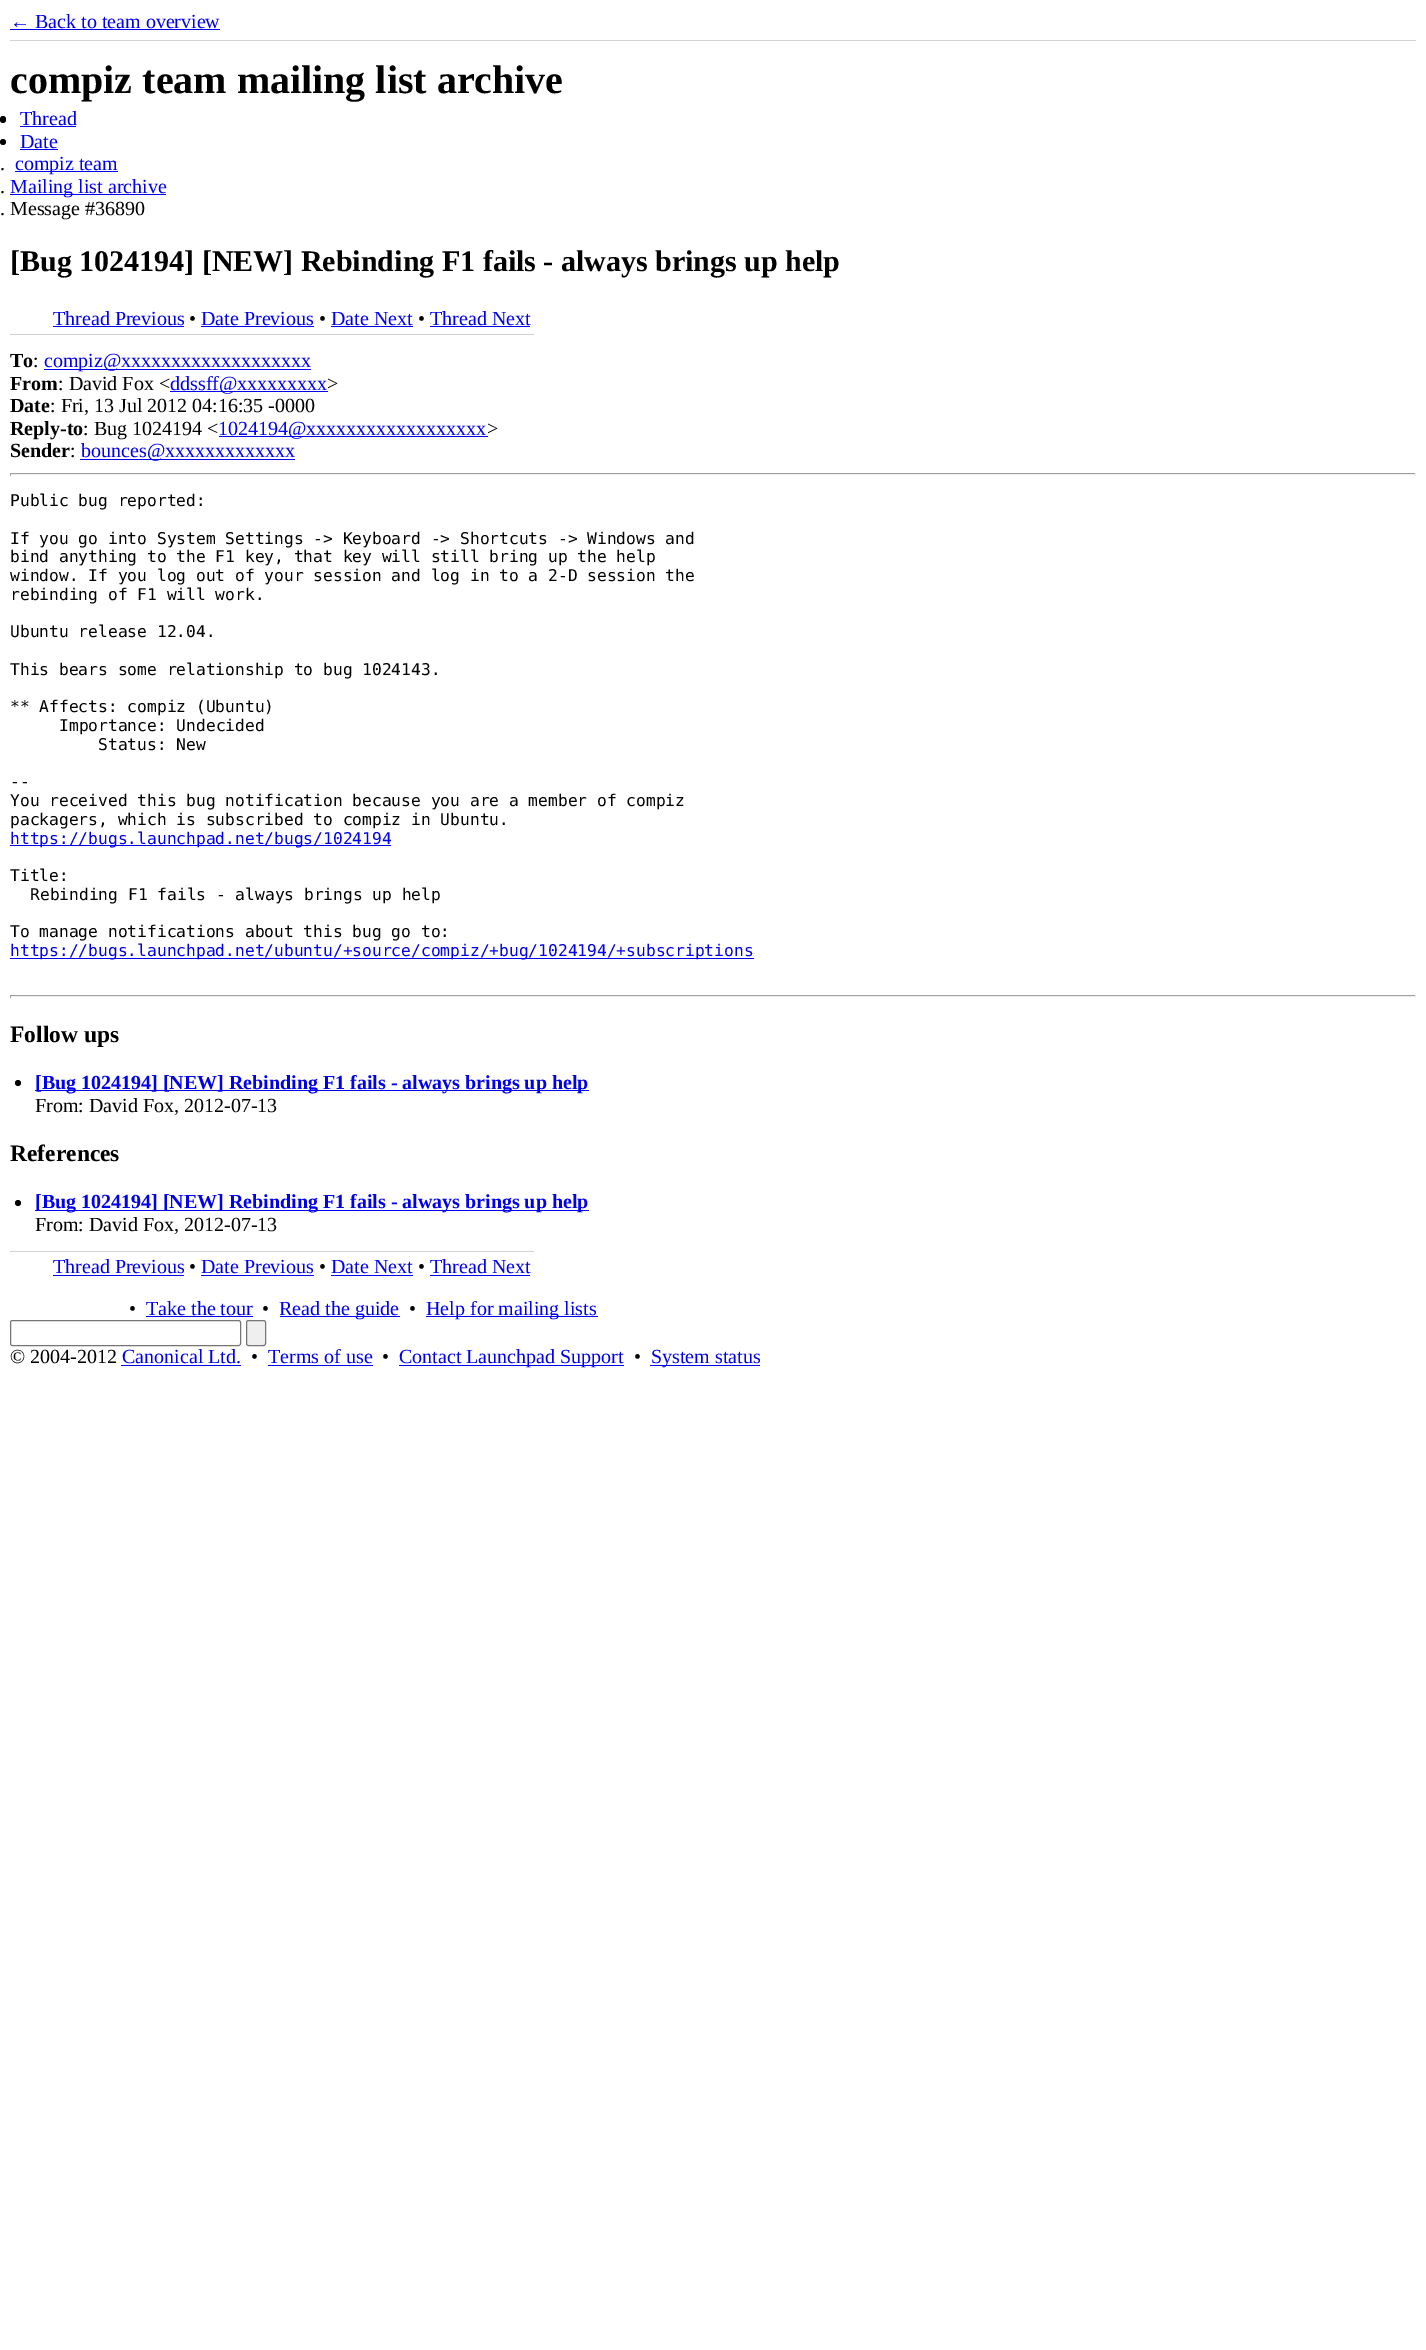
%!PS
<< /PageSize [1426 2350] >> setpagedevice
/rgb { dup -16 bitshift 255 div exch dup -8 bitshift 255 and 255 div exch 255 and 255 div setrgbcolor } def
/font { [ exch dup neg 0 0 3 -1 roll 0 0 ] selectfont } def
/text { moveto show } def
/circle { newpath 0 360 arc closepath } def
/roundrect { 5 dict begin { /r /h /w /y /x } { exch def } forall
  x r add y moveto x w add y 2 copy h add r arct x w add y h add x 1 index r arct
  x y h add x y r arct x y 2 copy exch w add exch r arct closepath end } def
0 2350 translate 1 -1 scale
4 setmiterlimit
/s1 { /LiberationSerif-Regular 20 font 16#0000EE rgb } def
/s2 { /LiberationSerif-Bold 40 font 16#000000 rgb } def
/s3 { /LiberationSerif-Regular 20 font 16#000000 rgb } def
/s4 { /LiberationSerif-Bold 30 font 16#000000 rgb } def
/s5 { /LiberationSerif-Bold 20 font 16#000000 rgb } def
/s6 { /DejaVuSansMono-Regular 16.25 font 16#000000 rgb } def
/s7 { /DejaVuSansMono-Regular 16.25 font 16#0000EE rgb } def
/s8 { /LiberationSerif-Bold 23.5 font 16#000000 rgb } def
/s9 { /LiberationSerif-Bold 20 font 16#0000EE rgb } def
16#FFFFFF rgb
0 0 1426 2350 rectfill
16#D2D2D2 rgb
10 40 1406 1 rectfill
s1
(← Back to team overview) 10 28 text
10 29 210 1 rectfill
s2
(compiz team mailing list archive) 10 93 text
0 116 6 7 3 roundrect fill
s1
(Thread) 20 125 text
20 126 56 1 rectfill
16#000000 rgb
3 142 3 circle fill
s1
(Date) 20 148 text
20 149 38 1 rectfill
s3
(.) 0 170 text
16#0000EE rgb
15 171 103 1 rectfill
(compiz team) 15 170 text
s3
(.) 0 193 text
16#0000EE rgb
10 194 156 1 rectfill
(Mailing list archive) 10 193 text
s3
(. Message #36890) 0 215 text
s4
([Bug 1024194] [NEW] Rebinding F1 fails - always brings up help) 10 271 text
16#D2D2D2 rgb
10 334 524 1 rectfill
s1
(Thread Previous) 53 325 text
53 326 131 1 rectfill
s3
(•) 189 325 text
s1
(Date Previous) 201 325 text
201 326 113 1 rectfill
s3
(•) 319 325 text
s1
(Date Next) 331 325 text
331 326 82 1 rectfill
s3
(•) 418 325 text
s1
(Thread Next) 430 325 text
430 326 100 1 rectfill
s5
(To) 10 367 text
s3
(:) 33 367 text
16#0000EE rgb
44 369 267 1 rectfill
(compiz@xxxxxxxxxxxxxxxxxxx) 44 367 text
s5
(From) 10 390 text
s3
(: David Fox <) 58 390 text
16#0000EE rgb
170 391 158 1 rectfill
(ddssff@xxxxxxxxx) 170 390 text
s3
(>) 327 390 text
s5
(Date) 10 412 text
s3
(: Fri, 13 Jul 2012 04:16:35 -0000) 50 412 text
s5
(Reply-to) 10 435 text
s3
(: Bug 1024194 <) 83 435 text
16#0000EE rgb
219 436 269 1 rectfill
(1024194@xxxxxxxxxxxxxxxxxx) 218 435 text
s3
(>) 487 435 text
s5
(Sender) 10 457 text
s3
(:) 70 457 text
16#0000EE rgb
80 459 215 1 rectfill
(bounces@xxxxxxxxxxxxx) 81 457 text
16#9F9F9F rgb
10 473 1406 1 rectfill
16#EEEEEE rgb
1415 473 1 3 rectfill
10 474 1406 1 rectfill
16#9F9F9F rgb
10 473 1 3 rectfill
s6
(Public bug reported:) 10 506 text
(If you go into System Settings -> Keyboard -> Shortcuts -> Windows and) 10 544 text
(bind anything to the F1 key, that key will still bring up the help) 10 562 text
(window. If you log out of your session and log in to a 2-D session the) 10 581 text
(rebinding of F1 will work.) 10 600 text
(Ubuntu release 12.04.) 10 637 text
(This bears some relationship to bug 1024143.) 10 675 text
(** Affects: compiz \(Ubuntu\)) 10 712 text
(Importance: Undecided) 59 731 text
(Status: New) 98 750 text
(--) 10 787 text
(You received this bug notification because you are a member of compiz) 10 806 text
(packagers, which is subscribed to compiz in Ubuntu.) 10 825 text
16#0000EE rgb
10 845 381 1 rectfill
(https://bugs.launchpad.net/bugs/1024194) 10 844 text
s6
(Title:) 10 881 text
(Rebinding F1 fails - always brings up help) 30 900 text
(To manage notifications about this bug go to:) 10 937 text
16#0000EE rgb
10 958 744 1 rectfill
(https://bugs.launchpad.net/ubuntu/+source/compiz/+bug/1024194/+subscriptions) 10 956 text
16#9F9F9F rgb
10 995 1406 1 rectfill
16#EEEEEE rgb
1415 995 1 3 rectfill
10 996 1406 1 rectfill
16#9F9F9F rgb
10 995 1 3 rectfill
s8
(Follow ups) 10 1042 text
18 1083 3 circle fill
16#0000EE rgb
35 1090 554 1 rectfill
s9
([Bug 1024194] [NEW] Rebinding F1 fails - always brings up help) 35 1089 text
s3
(From: David Fox, 2012-07-13) 35 1112 text
s8
(References) 10 1161 text
18 1203 3 circle fill
16#0000EE rgb
35 1210 554 1 rectfill
s9
([Bug 1024194] [NEW] Rebinding F1 fails - always brings up help) 35 1208 text
s3
(From: David Fox, 2012-07-13) 35 1231 text
16#D2D2D2 rgb
10 1251 524 1 rectfill
s1
(Thread Previous) 53 1273 text
53 1275 131 1 rectfill
s3
(•) 189 1273 text
s1
(Date Previous) 201 1273 text
201 1275 113 1 rectfill
s3
(•) 319 1273 text
s1
(Date Next) 331 1273 text
331 1275 82 1 rectfill
s3
(•) 418 1273 text
s1
(Thread Next) 430 1273 text
430 1275 100 1 rectfill
s3
(•) 129 1315 text
s1
(Take the tour) 146 1315 text
146 1316 107 1 rectfill
s3
(•) 262 1315 text
16#0000EE rgb
280 1316 120 1 rectfill
(Read the guide) 279 1315 text
s3
(•) 409 1315 text
16#0000EE rgb
426 1316 172 1 rectfill
(Help for mailing lists) 426 1315 text
16#767676 rgb
10.5 1320.5 230 25 2 roundrect stroke
16#EFEFEF rgb
246.5 1320.5 19 25 2 roundrect gsave fill grestore
16#767676 rgb
stroke
s3
(© 2004-2012) 10 1363 text
s1
(Canonical Ltd.) 122 1363 text
121 1365 120 1 rectfill
s3
(•) 251 1363 text
s1
(Terms of use) 268 1363 text
268 1365 105 1 rectfill
s3
(•) 382 1363 text
16#0000EE rgb
399 1365 225 1 rectfill
(Contact Launchpad Support) 399 1363 text
s3
(•) 634 1363 text
16#0000EE rgb
650 1365 110 1 rectfill
(System status) 651 1363 text
showpage
